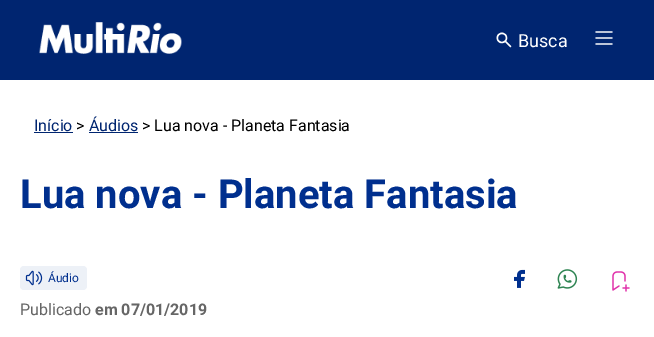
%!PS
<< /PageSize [654 337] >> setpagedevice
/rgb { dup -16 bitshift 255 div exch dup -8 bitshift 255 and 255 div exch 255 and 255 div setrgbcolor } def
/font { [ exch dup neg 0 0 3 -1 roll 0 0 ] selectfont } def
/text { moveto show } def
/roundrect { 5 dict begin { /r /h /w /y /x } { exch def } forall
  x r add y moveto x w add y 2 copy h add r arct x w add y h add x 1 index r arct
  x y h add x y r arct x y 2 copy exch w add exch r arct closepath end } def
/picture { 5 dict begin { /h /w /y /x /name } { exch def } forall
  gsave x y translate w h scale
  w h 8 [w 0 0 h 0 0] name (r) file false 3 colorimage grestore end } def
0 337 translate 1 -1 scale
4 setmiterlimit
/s1 { /Roboto-Regular 18 font 16#FFFFFF rgb } def
/s2 { /Roboto-Regular 16 font 16#002570 rgb } def
/s3 { /Roboto-Regular 16 font 16#000000 rgb } def
/s4 { /Roboto-Bold 40 font 16#002F8E rgb } def
/s5 { /Roboto-Regular 12 font 16#002F8E rgb } def
/s6 { /Roboto-Regular 16 font 16#666666 rgb } def
/s7 { /Roboto-Bold 16 font 16#666666 rgb } def
16#FFFFFF rgb
0 0 654 337 rectfill
16#002570 rgb
0 0 654 80 rectfill
(pic1.raw) 39 22 143 32 picture
(pic2.raw) 496 32 16 16 picture
s1
(Busca) 518 47 text
(pic3.raw) 595 31 18 14 picture
s2
(Início) 34 131 text
34 132 39 1 rectfill
s3
(>) 76 131 text
s2
(Áudios) 89 131 text
89 132 49 1 rectfill
s3
(> Lua nova - Planeta Fantasia) 142 131 text
s4
(Lua nova - Planeta Fantasia) 20 208 text
16#EDF1F7 rgb
20 266 67 24 4 roundrect fill
(pic4.raw) 25 270 18 16 picture
s5
(Áudio) 48 282 text
s6
(Publicado) 20 315 text
s7
(em 07/01/2019) 95 315 text
(pic5.raw) 514 269 11 19 picture
(pic6.raw) 557 269 21 20 picture
(pic7.raw) 612 271 18 21 picture
showpage
